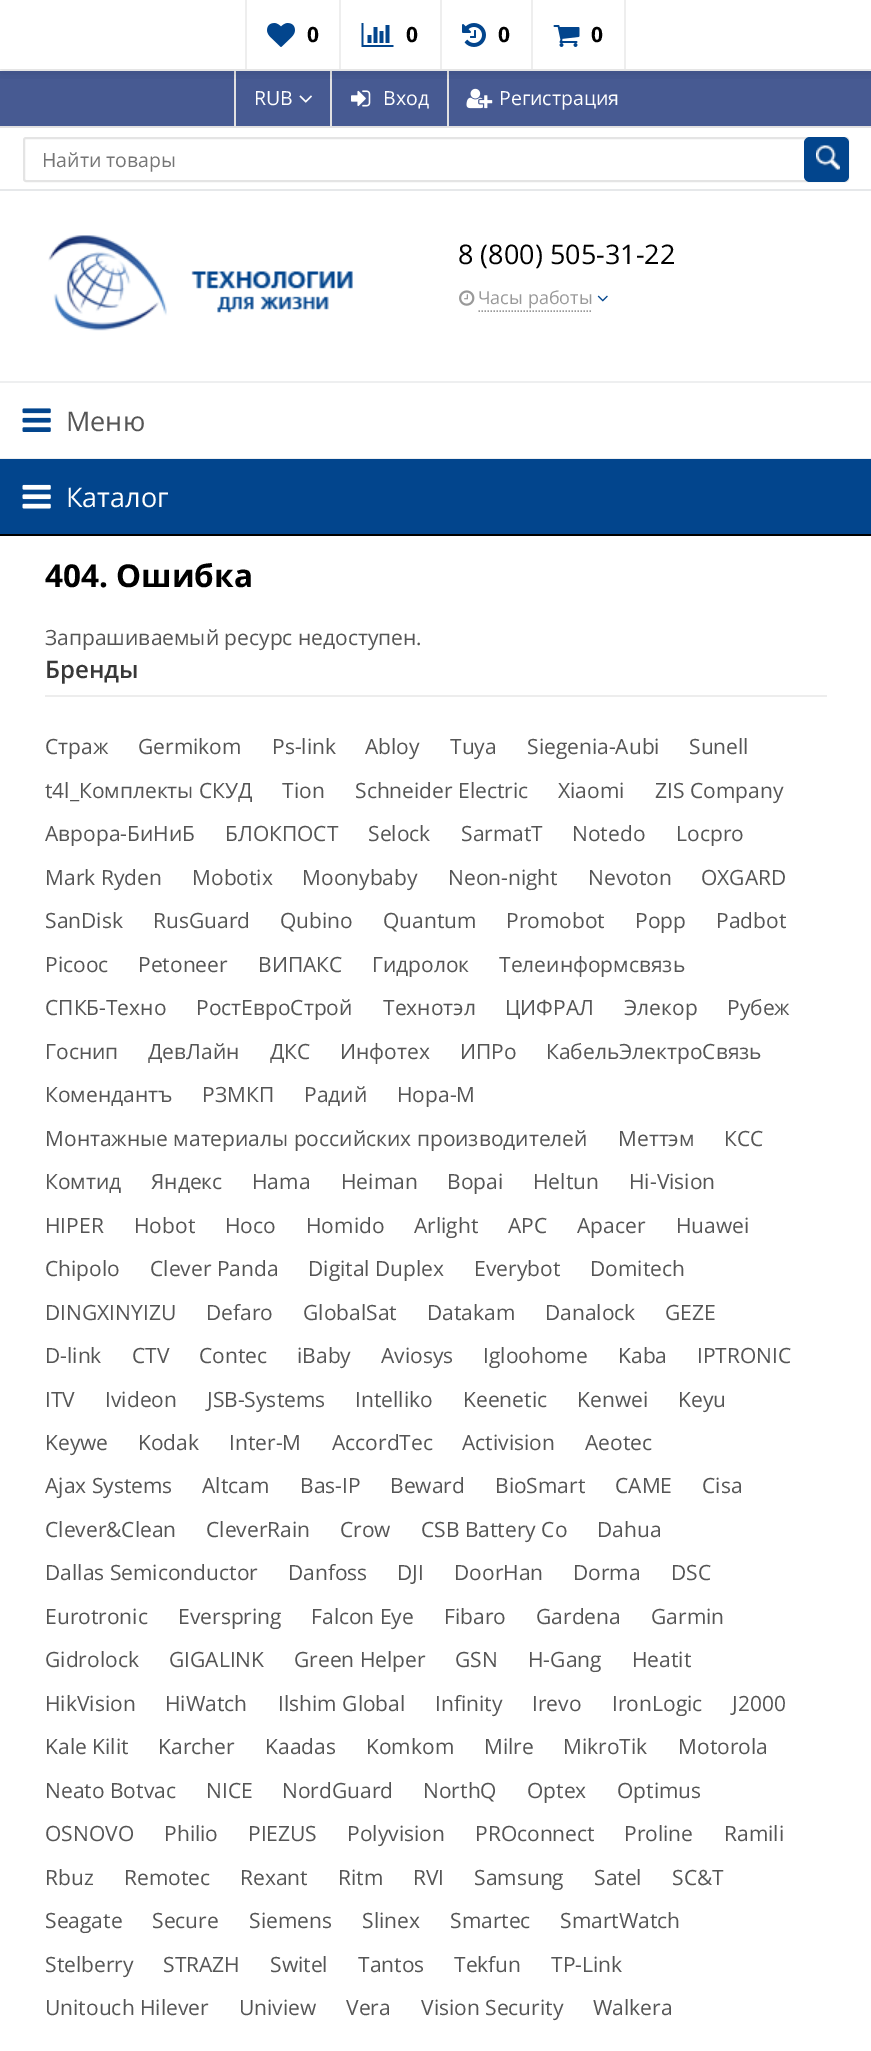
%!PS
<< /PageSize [871 2051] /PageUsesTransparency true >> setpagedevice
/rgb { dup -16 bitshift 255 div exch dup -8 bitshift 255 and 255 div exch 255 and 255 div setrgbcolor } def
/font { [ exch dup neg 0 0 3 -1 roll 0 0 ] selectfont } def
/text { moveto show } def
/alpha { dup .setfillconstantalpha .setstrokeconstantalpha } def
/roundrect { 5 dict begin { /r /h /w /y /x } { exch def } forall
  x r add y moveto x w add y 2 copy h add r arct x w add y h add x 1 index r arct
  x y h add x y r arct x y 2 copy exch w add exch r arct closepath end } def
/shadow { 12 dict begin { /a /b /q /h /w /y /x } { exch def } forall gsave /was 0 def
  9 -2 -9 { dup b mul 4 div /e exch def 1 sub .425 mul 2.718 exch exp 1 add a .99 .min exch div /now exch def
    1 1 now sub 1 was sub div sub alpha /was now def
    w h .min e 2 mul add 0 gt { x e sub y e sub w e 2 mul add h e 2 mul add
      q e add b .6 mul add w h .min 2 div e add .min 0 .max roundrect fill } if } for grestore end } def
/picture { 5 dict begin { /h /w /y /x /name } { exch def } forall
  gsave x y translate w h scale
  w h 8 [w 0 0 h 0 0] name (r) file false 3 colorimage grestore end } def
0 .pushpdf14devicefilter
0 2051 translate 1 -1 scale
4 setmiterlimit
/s1 { /OpenSans-Bold 21 font 16#000000 rgb } def
/s2 { /OpenSans-Regular 19.5 font 16#FFFFFF rgb } def
/s3 { /OpenSans-Regular 19.5 font 16#757575 rgb } def
/s4 { /OpenSans-Regular 27 font 16#000000 rgb } def
/s5 { /OpenSans-Regular 18 font 16#999999 rgb } def
/s6 { /OpenSans-Regular 27 font 16#555555 rgb } def
/s7 { /OpenSans-Regular 27 font 16#FFFFFF rgb } def
/s8 { /OpenSans-Bold 31.5 font 16#000000 rgb } def
/s9 { /OpenSans-Regular 21 font 16#555555 rgb } def
/s10 { /OpenSans-SemiBold 24 font 16#383838 rgb } def
16#FFFFFF rgb
0 0 871 2051 rectfill
16#475A92 rgb
0 71 871 55 rectfill
16#E2E1E2 rgb
234 71 2 55 rectfill
330 71 2 55 rectfill
(pic6.raw) 351 90 20 17 picture
447 71 2 55 rectfill
(pic7.raw) 466 88 27 21 picture
gsave
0 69 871 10 rectclip
16#000000 rgb
0 0 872 69 0 7.5 0.2 shadow
grestore
16#EEEEEE rgb
245 0 2 69 rectfill
(pic1.raw) 267 23 28 24 picture
s1
(0) 307 42 text
16#EEEEEE rgb
339 0 2 69 rectfill
(pic2.raw) 361 23 33 24 picture
s1
(0) 406 42 text
16#EEEEEE rgb
440 0 2 69 rectfill
(pic3.raw) 462 23 24 24 picture
s1
(0) 498 42 text
16#EEEEEE rgb
624 0 2 69 rectfill
531 0 2 69 rectfill
(pic4.raw) 553 25 27 22 picture
s1
(0) 591 42 text
16#E6E8EA rgb
0 189 871 2 rectfill
s2
(RUB) 254 105 text
(pic5.raw) 299 95 13 8 picture
(Вход) 383 105 text
(Регистрация) 499 105 text
16#E2E1E2 rgb
0 126 871 2 rectfill
16#E4E4E4 rgb
2 setlinewidth
24 138 824 43 2 roundrect stroke
s3
(Найти товары) 42 167 text
16#02458D rgb
804 137 45 45 6 roundrect fill
(pic8.raw) 816 145 24 25 picture
(pic9.raw) 48 235 305 96 picture
s4
(8 \(800\) 505-31-22) 458 264 text
(pic10.raw) 459 290 16 16 picture
s5
(Часы работы) 478 304 text
1.5 setlinewidth
[1.5 1.5] 0 setdash
478.5 311 moveto 592.5 311 lineto stroke
(pic11.raw) 597 295 11 7 picture
16#EEEFF0 rgb
0 381 871 2 rectfill
0 458 871 1 rectfill
(pic12.raw) 22 408 29 24 picture
s6
(Меню) 66 431 text
16#000000 rgb
0 534 871 2 rectfill
16#02458D rgb
0 459 871 75 rectfill
(pic13.raw) 22 484 29 25 picture
s7
(Каталог) 66 507 text
s8
(404. Ошибка) 45 587 text
s9
(Запрашиваемый ресурс недоступен.) 45 645 text
s10
(Бренды) 45 678 text
16#EDEDED rgb
45 695 782 2 rectfill
s9
(Страж) 45 754 text
(Germikom) 138 754 text
(Ps-link) 272 754 text
(Abloy) 365 754 text
(Tuya) 450 754 text
(Siegenia-Aubi) 527 754 text
(Sunell) 689 754 text
(t4l_Комплекты СКУД) 45 798 text
(Tion) 282 798 text
(Schneider Electric) 355 798 text
(Xiaomi) 558 798 text
(ZIS Company) 655 798 text
(Аврора-БиНиБ) 45 841 text
(БЛОКПОСТ) 225 841 text
(Selock) 368 841 text
(SarmatT) 461 841 text
(Notedo) 572 841 text
(Locpro) 676 841 text
(Mark Ryden) 45 885 text
(Mobotix) 192 885 text
(Moonybaby) 302 885 text
(Neon-night) 448 885 text
(Nevoton) 588 885 text
(OXGARD) 701 885 text
(SanDisk) 45 928 text
(RusGuard) 153 928 text
(Qubino) 280 928 text
(Quantum) 383 928 text
(Promobot) 506 928 text
(Popp) 635 928 text
(Padbot) 716 928 text
(Picooc) 45 972 text
(Petoneer) 138 972 text
(ВИПАКС) 258 972 text
(Гидролок) 372 972 text
(Телеинформсвязь) 499 972 text
(СПКБ-Техно) 45 1015 text
(РостЕвроСтрой) 196 1015 text
(Технотэл) 383 1015 text
(ЦИФРАЛ) 505 1015 text
(Элекор) 624 1015 text
(Рубеж) 727 1015 text
(Госнип) 45 1059 text
(ДевЛайн) 148 1059 text
(ДКС) 270 1059 text
(Инфотех) 340 1059 text
(ИПРо) 460 1059 text
(КабельЭлектроСвязь) 546 1059 text
(Комендантъ) 45 1102 text
(РЗМКП) 202 1102 text
(Радий) 304 1102 text
(Нора-М) 397 1102 text
(Монтажные материалы российских производителей) 45 1146 text
(Меттэм) 618 1146 text
(КСС) 724 1146 text
(Комтид) 45 1189 text
(Яндекс) 151 1189 text
(Hama) 252 1189 text
(Heiman) 341 1189 text
(Bopai) 447 1189 text
(Heltun) 533 1189 text
(Hi-Vision) 629 1189 text
(HIPER) 45 1233 text
(Hobot) 134 1233 text
(Hoco) 225 1233 text
(Homido) 306 1233 text
(Arlight) 414 1233 text
(APC) 508 1233 text
(Apacer) 577 1233 text
(Huawei) 676 1233 text
(Chipolo) 45 1276 text
(Clever Panda) 150 1276 text
(Digital Duplex) 308 1276 text
(Everybot) 474 1276 text
(Domitech) 590 1276 text
(DINGXINYIZU) 45 1320 text
(Defaro) 206 1320 text
(GlobalSat) 303 1320 text
(Datakam) 427 1320 text
(Danalock) 545 1320 text
(GEZE) 665 1320 text
(D-link) 45 1363 text
(CTV) 132 1363 text
(Contec) 199 1363 text
(iBaby) 297 1363 text
(Aviosys) 381 1363 text
(Igloohome) 483 1363 text
(Kaba) 618 1363 text
(IPTRONIC) 697 1363 text
(ITV) 45 1407 text
(Ivideon) 105 1407 text
(JSB-Systems) 207 1407 text
(Intelliko) 355 1407 text
(Keenetic) 463 1407 text
(Kenwei) 577 1407 text
(Keyu) 678 1407 text
(Keywe) 45 1450 text
(Kodak) 138 1450 text
(Inter-M) 229 1450 text
(AccordTec) 332 1450 text
(Activision) 462 1450 text
(Aeotec) 585 1450 text
(Ajax Systems) 45 1493 text
(Altcam) 202 1493 text
(Bas-IP) 300 1493 text
(Beward) 390 1493 text
(BioSmart) 495 1493 text
(CAME) 615 1493 text
(Cisa) 702 1493 text
(Clever&Clean) 45 1537 text
(CleverRain) 206 1537 text
(Crow) 340 1537 text
(CSB Battery Co) 421 1537 text
(Dahua) 597 1537 text
(Dallas Semiconductor) 45 1580 text
(Danfoss) 288 1580 text
(DJI) 397 1580 text
(DoorHan) 454 1580 text
(Dorma) 573 1580 text
(DSC) 671 1580 text
(Eurotronic) 45 1624 text
(Everspring) 178 1624 text
(Falcon Eye) 311 1624 text
(Fibaro) 444 1624 text
(Gardena) 536 1624 text
(Garmin) 651 1624 text
(Gidrolock) 45 1667 text
(GIGALINK) 169 1667 text
(Green Helper) 294 1667 text
(GSN) 455 1667 text
(H-Gang) 528 1667 text
(Heatit) 632 1667 text
(HikVision) 45 1711 text
(HiWatch) 165 1711 text
(Ilshim Global) 278 1711 text
(Infinity) 435 1711 text
(Irevo) 532 1711 text
(IronLogic) 612 1711 text
(J2000) 732 1711 text
(Kale Kilit) 45 1754 text
(Karcher) 158 1754 text
(Kaadas) 265 1754 text
(Komkom) 366 1754 text
(Milre) 484 1754 text
(MikroTik) 563 1754 text
(Motorola) 678 1754 text
(Neato Botvac) 45 1798 text
(NICE) 206 1798 text
(NordGuard) 282 1798 text
(NorthQ) 423 1798 text
(Optex) 527 1798 text
(Optimus) 617 1798 text
(OSNOVO) 45 1841 text
(Philio) 164 1841 text
(PIEZUS) 248 1841 text
(Polyvision) 347 1841 text
(PROconnect) 475 1841 text
(Proline) 624 1841 text
(Ramili) 724 1841 text
(Rbuz) 45 1885 text
(Remotec) 124 1885 text
(Rexant) 240 1885 text
(Ritm) 338 1885 text
(RVI) 413 1885 text
(Samsung) 474 1885 text
(Satel) 594 1885 text
(SC&T) 672 1885 text
(Seagate) 45 1928 text
(Secure) 152 1928 text
(Siemens) 249 1928 text
(Slinex) 362 1928 text
(Smartec) 450 1928 text
(SmartWatch) 560 1928 text
(Stelberry) 45 1972 text
(STRAZH) 163 1972 text
(Switel) 270 1972 text
(Tantos) 358 1972 text
(Tekfun) 454 1972 text
(TP-Link) 551 1972 text
(Unitouch Hilever) 45 2015 text
(Uniview) 239 2015 text
(Vera) 346 2015 text
(Vision Security) 421 2015 text
(Walkera) 593 2015 text
.poppdf14devicefilter showpage
